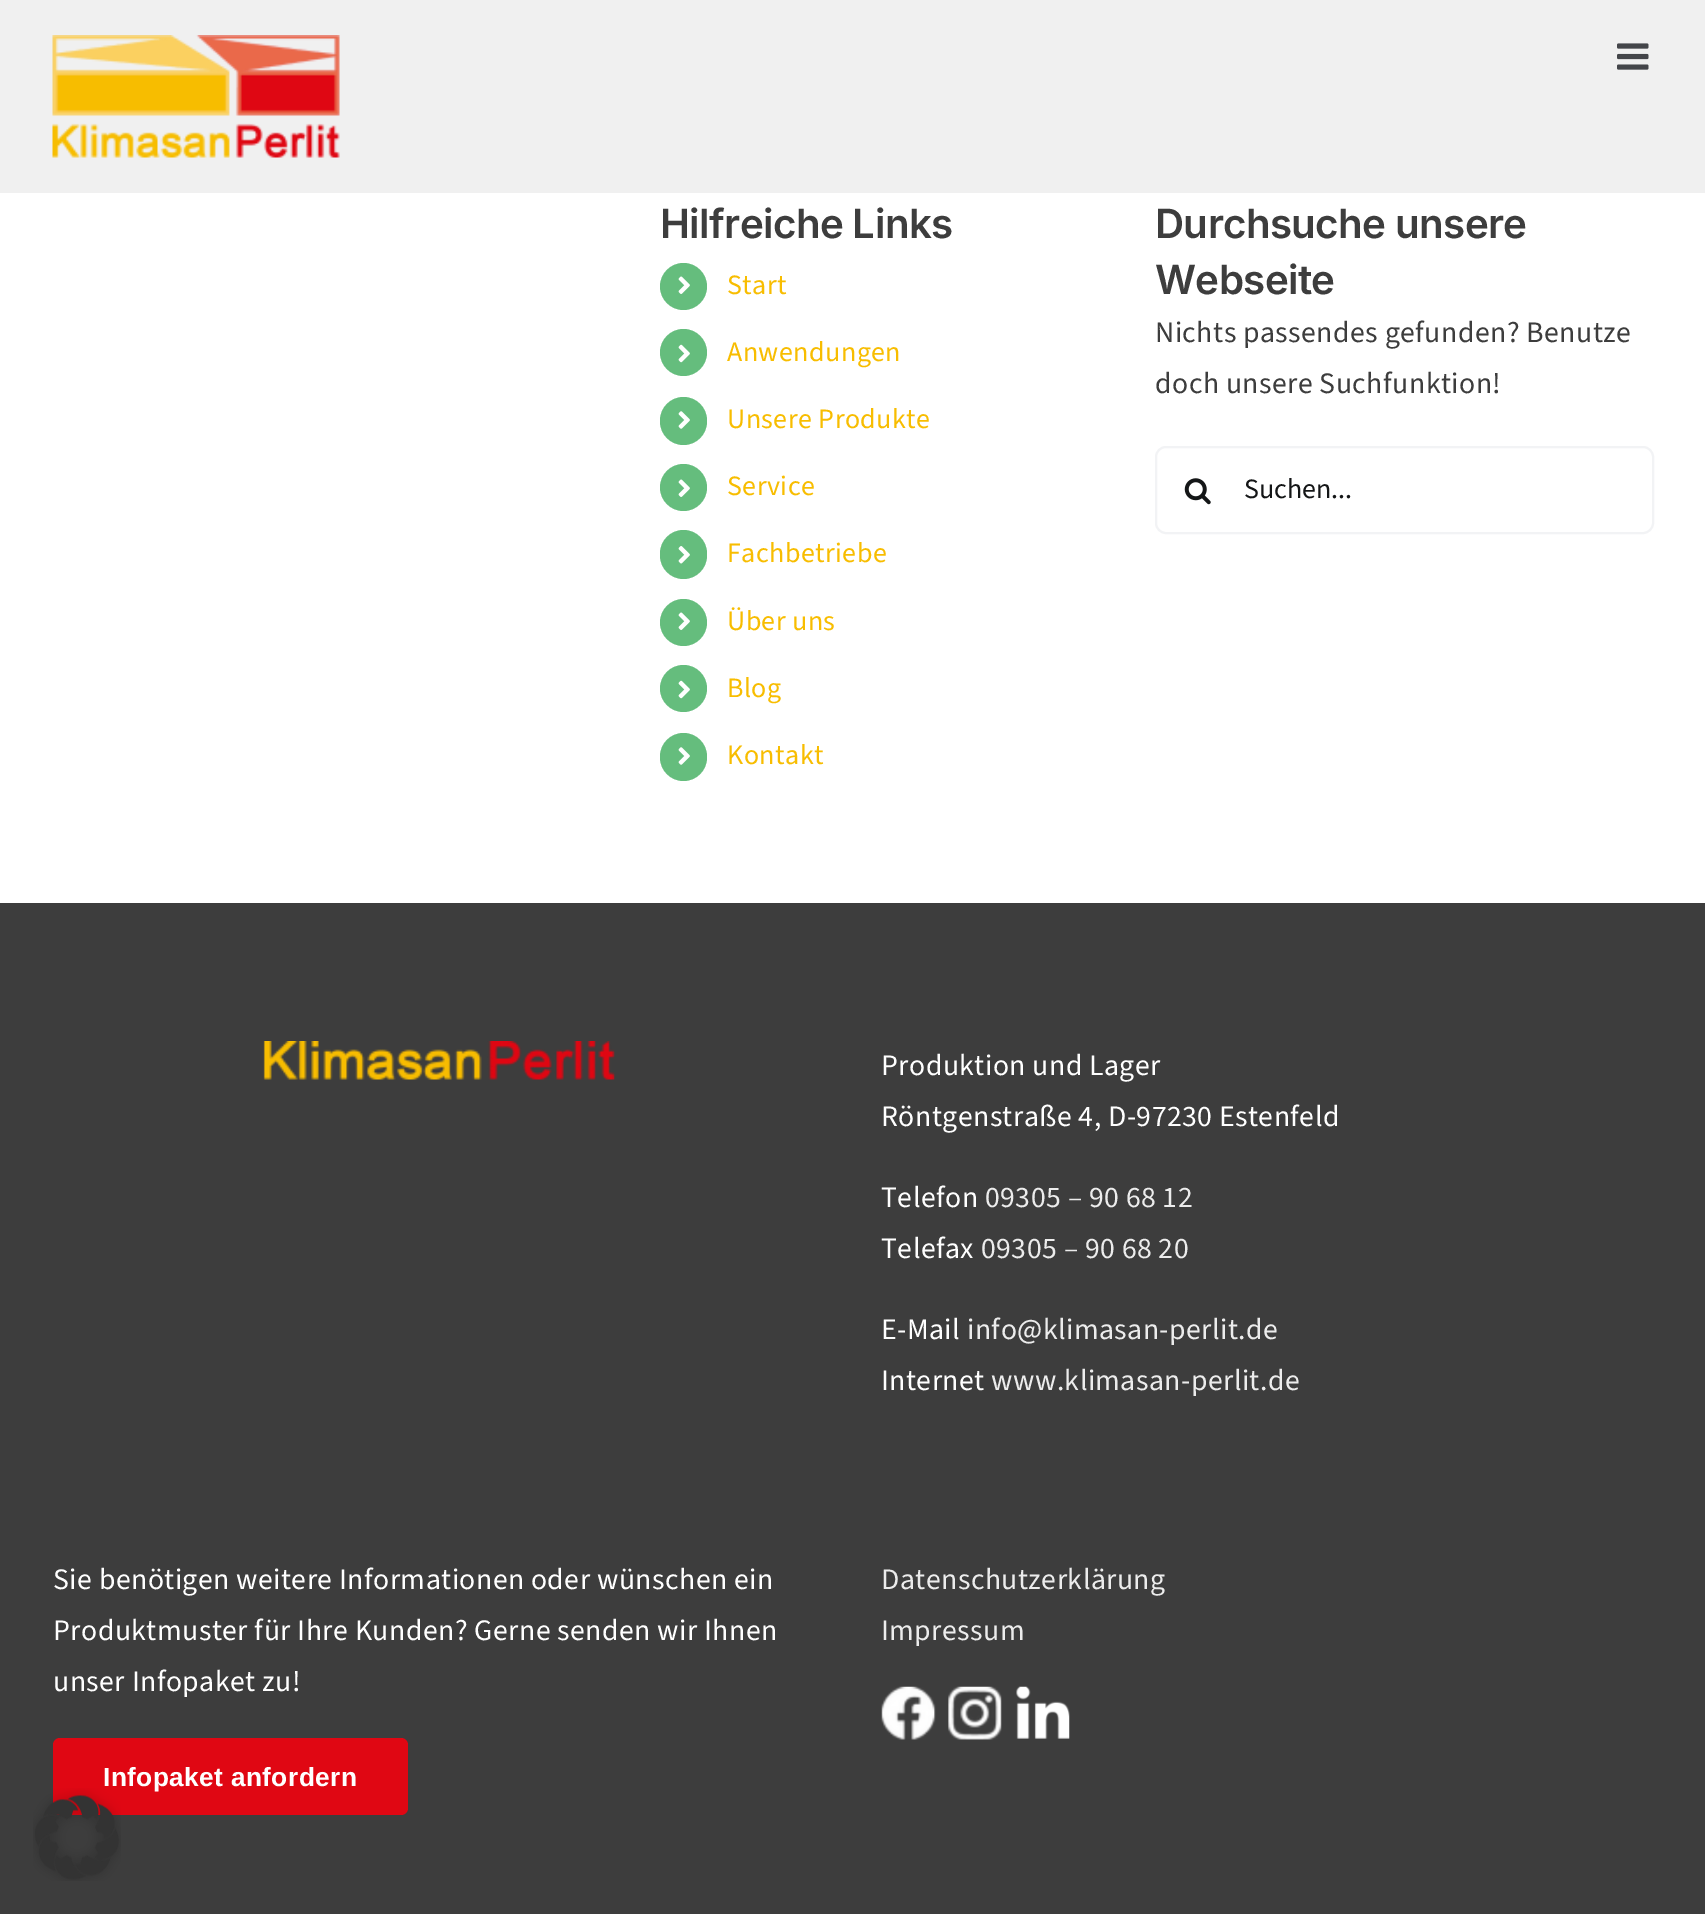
%!PS
<< /PageSize [1705 1914] >> setpagedevice
/rgb { dup -16 bitshift 255 div exch dup -8 bitshift 255 and 255 div exch 255 and 255 div setrgbcolor } def
/font { [ exch dup neg 0 0 3 -1 roll 0 0 ] selectfont } def
/text { moveto show } def
/circle { newpath 0 360 arc closepath } def
/roundrect { 5 dict begin { /r /h /w /y /x } { exch def } forall
  x r add y moveto x w add y 2 copy h add r arct x w add y h add x 1 index r arct
  x y h add x y r arct x y 2 copy exch w add exch r arct closepath end } def
/picture { 5 dict begin { /h /w /y /x /name } { exch def } forall
  gsave x y translate w h scale
  w h 8 [w 0 0 h 0 0] name (r) file false 3 colorimage grestore end } def
0 1914 translate 1 -1 scale
4 setmiterlimit
/s1 { /SourceSans3-Regular 28 font 16#141617 rgb } def
16#FFFFFF rgb
0 0 1705 1914 rectfill
16#F0F0F0 rgb
0 0 1705 193 rectfill
(pic1.raw) 52 35 288 123 picture
(pic2.raw) 1617 43 32 27 picture
/Inter-SemiBold 40.25 font
16#3D3D3D rgb
660 238 moveto -0.6 0 (Hilfreiche Links) ashow
16#65BD7D rgb
683.5 286.5 23.5 circle fill
(pic3.raw) 678 276 12 18 picture
/SourceSans3-Regular 28 font
16#F8BD00 rgb
727 294 moveto 0.45 0 (Start) ashow
16#65BD7D rgb
683.5 352.5 23.5 circle fill
(pic4.raw) 678 344 12 19 picture
16#F8BD00 rgb
727 361 moveto 0.45 0 (Anwendungen) ashow
16#65BD7D rgb
660 397 47 48 23.5 roundrect fill
(pic5.raw) 678 411 12 18 picture
16#F8BD00 rgb
727 428 moveto 0.45 0 (Unsere Produkte) ashow
16#65BD7D rgb
683.5 487.5 23.5 circle fill
(pic3.raw) 678 479 12 18 picture
16#F8BD00 rgb
727 495 moveto 0.45 0 (Service) ashow
16#65BD7D rgb
660 530 47 49 23.5 roundrect fill
(pic6.raw) 678 546 12 18 picture
16#F8BD00 rgb
727 562 moveto 0.45 0 (Fachbetriebe) ashow
16#65BD7D rgb
683.5 622.5 23.5 circle fill
(pic3.raw) 678 612 12 18 picture
16#F8BD00 rgb
727 630 moveto 0.45 0 (Über uns) ashow
16#65BD7D rgb
683.5 688.5 23.5 circle fill
(pic4.raw) 678 680 12 19 picture
16#F8BD00 rgb
727 697 moveto 0.45 0 (Blog) ashow
16#65BD7D rgb
660 733 47 48 23.5 roundrect fill
(pic5.raw) 678 747 12 18 picture
16#F8BD00 rgb
727 764 moveto 0.45 0 (Kontakt) ashow
/Inter-SemiBold 40.25 font
16#3D3D3D rgb
1155 238 moveto -0.6 0 (Durchsuche unsere) ashow
1155 294 moveto -0.6 0 (Webseite) ashow
/SourceSans3-Regular 29.75 font
1155 342 moveto 0.45 0 (Nichts passendes gefunden? Benutze) ashow
1155 393 moveto 0.45 0 (doch unsere Suchfunktion!) ashow
16#F2F3F5 rgb
2 setlinewidth
1156 447 497 86 10 roundrect stroke
(pic7.raw) 1184 478 27 27 picture
s1
(Suchen...) 1244 498 text
16#3D3D3D rgb
0 903 1705 1011 rectfill
(pic8.raw) 263 1041 352 39 picture
/SourceSans3-Regular 29.75 font
16#FFFFFF rgb
881 1075 moveto 0.45 0 (Produktion und Lager) ashow
881 1126 moveto 0.45 0 (Röntgenstraße 4, D-97230 Estenfeld) ashow
881 1207 moveto 0.45 0 (Telefon) ashow
16#ECECEC rgb
985 1207 moveto 0.45 0 (09305 – 90 68 12) ashow
16#FFFFFF rgb
881 1258 moveto 0.45 0 (Telefax) ashow
16#ECECEC rgb
981 1258 moveto 0.45 0 (09305 – 90 68 20) ashow
16#FFFFFF rgb
881 1339 moveto 0.45 0 (E-Mail) ashow
16#ECECEC rgb
967 1339 moveto 0.45 0 (info@klimasan-perlit.de) ashow
16#FFFFFF rgb
881 1390 moveto 0.45 0 (Internet) ashow
16#ECECEC rgb
991 1390 moveto 0.45 0 (www.klimasan-perlit.de) ashow
16#FFFFFF rgb
53 1589 moveto 0.45 0 (Sie benötigen weitere Informationen oder wünschen ein) ashow
53 1640 moveto 0.45 0 (Produktmuster für Ihre Kunden? Gerne senden wir Ihnen) ashow
53 1691 moveto 0.45 0 (unser Infopaket zu!) ashow
16#E00713 rgb
53 1738 355 77 7 roundrect fill
/LiberationSans-Bold 26.25 font
16#FFFFFF rgb
103 1786 moveto 0.4 0 (Infopaket anfordern) ashow
/SourceSans3-Regular 29.75 font
16#ECECEC rgb
881 1589 moveto 0.45 0 (Datenschutzerklärung) ashow
881 1640 moveto 0.45 0 (Impressum) ashow
(pic9.raw) 881 1686 55 54 picture
(pic10.raw) 948 1686 54 54 picture
(pic11.raw) 1016 1686 54 53 picture
(pic12.raw) 33 1788 88 93 picture
showpage
